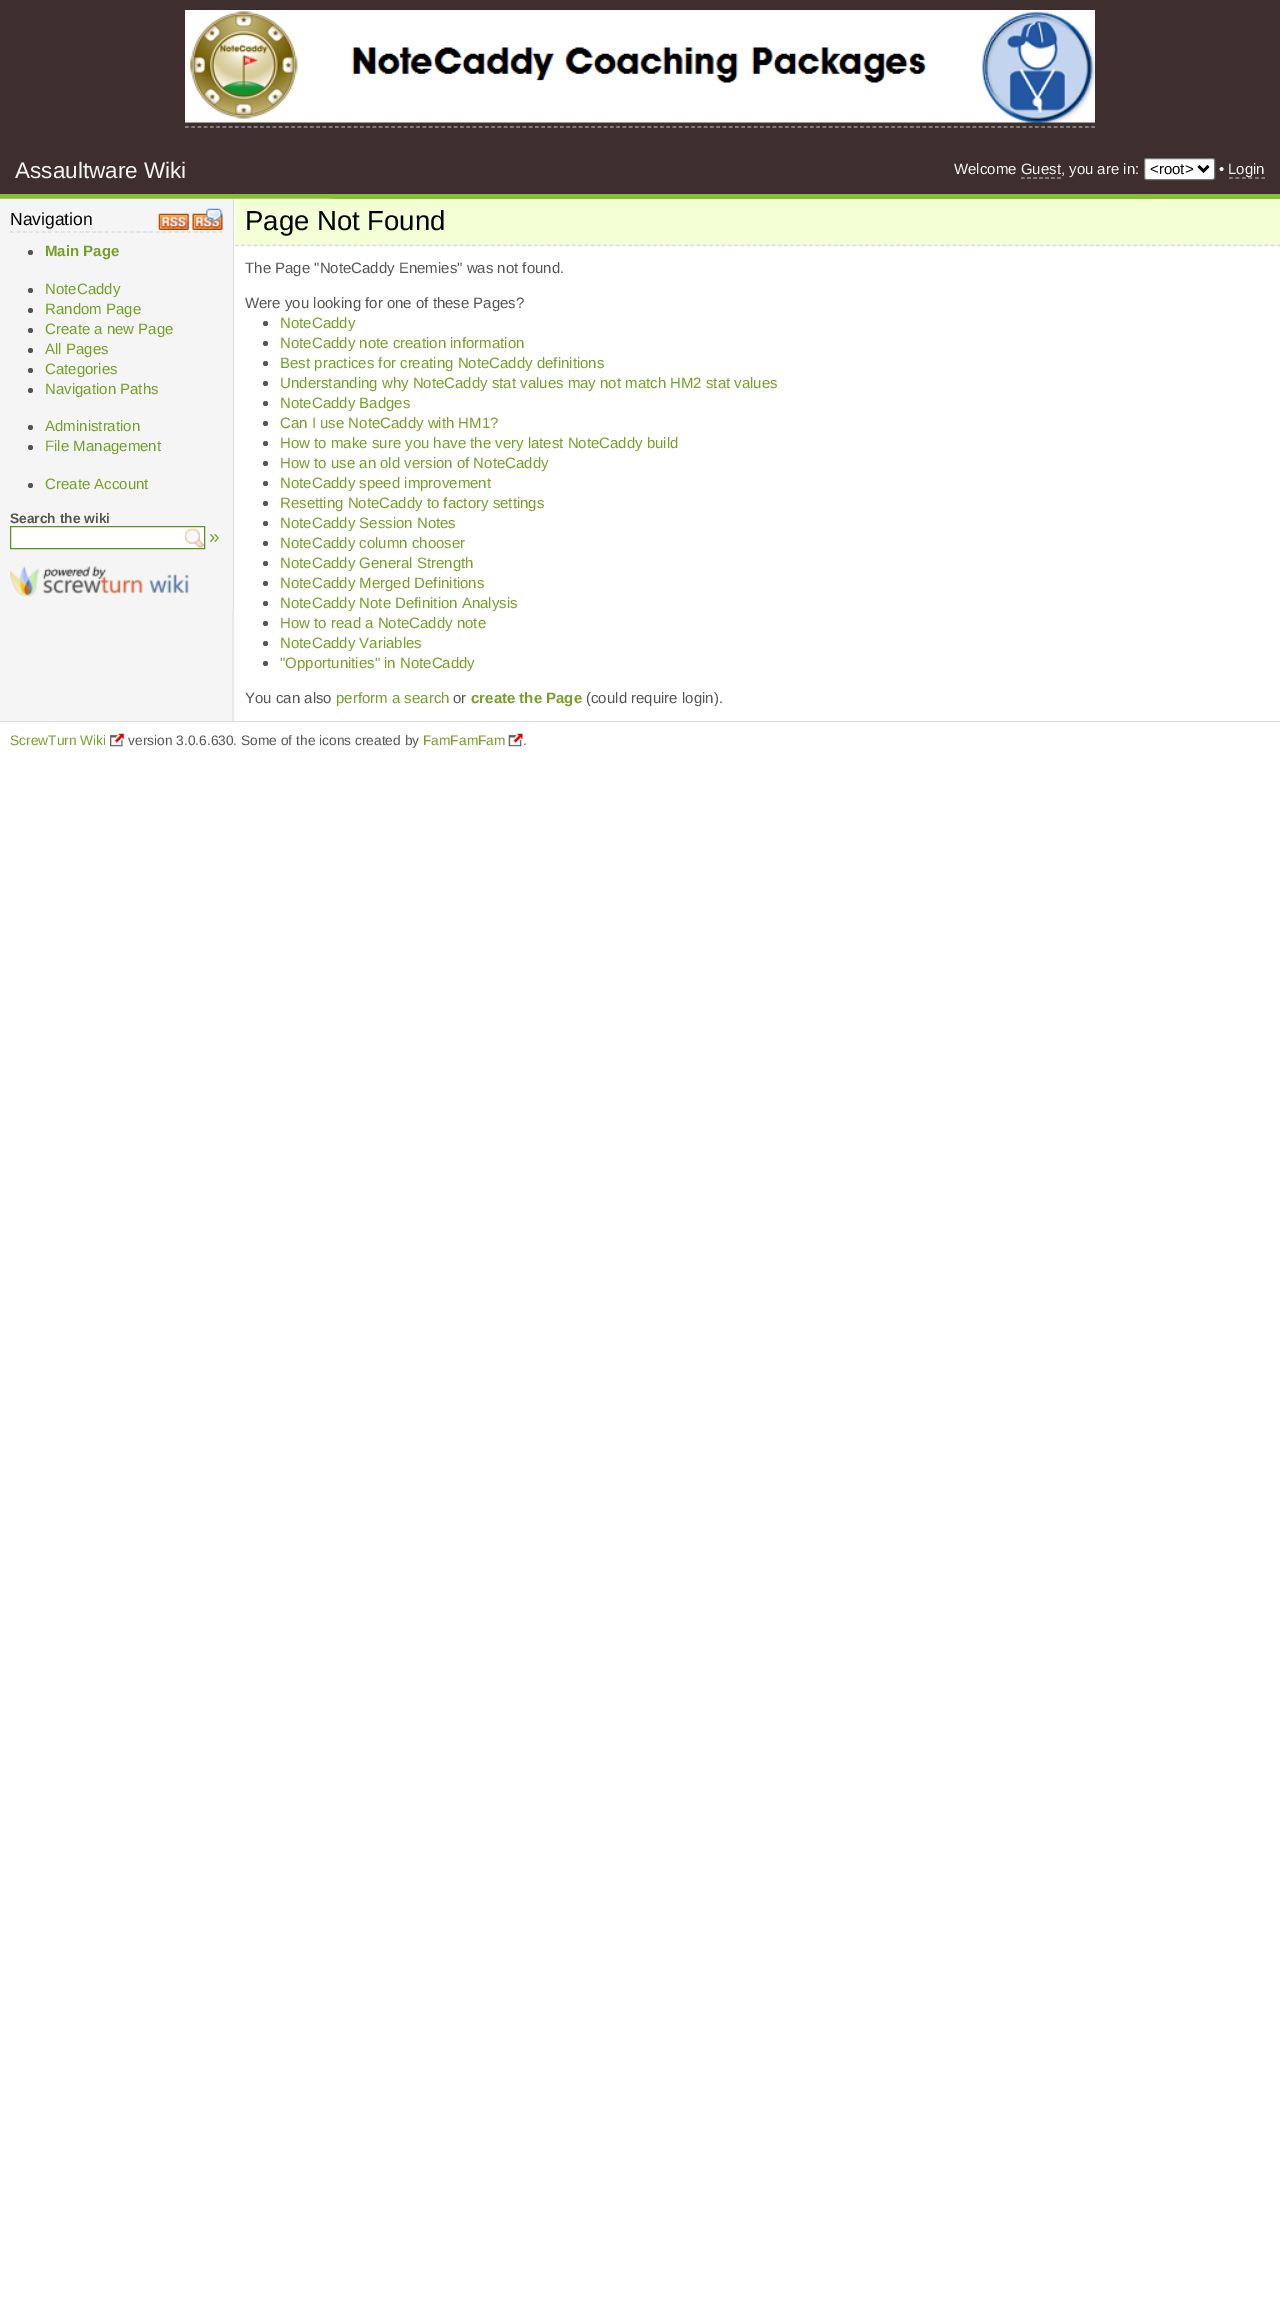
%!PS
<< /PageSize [1280 2307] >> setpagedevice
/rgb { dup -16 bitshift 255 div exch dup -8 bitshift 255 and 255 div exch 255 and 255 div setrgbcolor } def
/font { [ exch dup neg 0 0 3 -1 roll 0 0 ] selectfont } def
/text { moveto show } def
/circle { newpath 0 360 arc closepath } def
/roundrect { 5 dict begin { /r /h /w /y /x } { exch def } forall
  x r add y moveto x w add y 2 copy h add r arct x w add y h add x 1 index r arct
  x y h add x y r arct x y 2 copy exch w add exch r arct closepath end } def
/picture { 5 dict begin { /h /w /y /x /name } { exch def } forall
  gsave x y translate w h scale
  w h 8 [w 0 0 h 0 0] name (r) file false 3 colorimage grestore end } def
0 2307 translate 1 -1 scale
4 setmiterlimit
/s1 { /LiberationSans-Regular 22.5 font 16#F5F5F5 rgb } def
/s2 { /LiberationSans-Regular 15 font 16#F5F5F5 rgb } def
/s3 { /LiberationSans-Regular 15 font 16#000000 rgb } def
/s4 { /LiberationSans-Regular 17.5 font 16#000000 rgb } def
/s5 { /LiberationSans-Bold 15 font 16#769F29 rgb } def
/s6 { /LiberationSans-Regular 15 font 16#769F29 rgb } def
/s7 { /LiberationSans-Bold 13.75 font 16#555555 rgb } def
/s8 { /LiberationSans-Regular 19 font 16#769F29 rgb } def
/s9 { /LiberationSans-Regular 27.5 font 16#000000 rgb } def
/s10 { /LiberationSans-Regular 15 font 16#555555 rgb } def
/s11 { /LiberationSans-Regular 13.75 font 16#769F29 rgb } def
/s12 { /LiberationSans-Regular 13.75 font 16#555555 rgb } def
16#FFFFFF rgb
0 0 1280 2307 rectfill
16#3E2E2E rgb
0 0 1280 194 rectfill
16#86BE36 rgb
0 194 1280 5 rectfill
(pic1.raw) 185 10 910 113 picture
16#999999 rgb
1.2 setlinewidth
[3.75 2.5] 0 setdash
185 127 moveto 1095 127 lineto stroke
s1
(Assaultware Wiki) 15 178 text
s2
(Welcome Guest, you are in:) 954 174 text
16#FFFFFF rgb
1144.5 158.5 70 21 2 roundrect gsave fill grestore
16#767676 rgb
1 setlinewidth
[] 0 setdash
stroke
16#000000 rgb
2.5 setlinewidth
1198.5 166 moveto 1203.5 171 lineto 1208.5 166 lineto stroke
(<root>) 1150 174 text
s2
(•) 1219 174 text
16#999999 rgb
1.2 setlinewidth
[3.75 2.75] 0 setdash
1229 178 moveto 1265 178 lineto stroke
s2
(Login) 1228 174 text
16#999999 rgb
[3.75 2.29] 0 setdash
1021 178 moveto 1061 178 lineto stroke
(pic6.raw) 0 198 332 523 picture
16#F5F5F5 rgb
232 199 1 412 rectfill
16#DDDDDD rgb
233 199 1 412 rectfill
[3.75 2.58] 0 setdash
10 232 moveto 222.5 232 lineto stroke
s4
(Navigation) 10 225 text
(pic2.raw) 158 213 31 17 picture
(pic3.raw) 192 208 31 22 picture
16#555555 rgb
30.5 252.5 2.5 circle fill
s5
(Main Page) 45 256 text
16#555555 rgb
30.5 290.5 2.5 circle fill
s6
(NoteCaddy) 45 294 text
16#555555 rgb
30.5 310.5 2.5 circle fill
s6
(Random Page) 45 314 text
16#555555 rgb
30.5 330.5 2.5 circle fill
s6
(Create a new Page) 45 334 text
16#555555 rgb
30.5 350.5 2.5 circle fill
s6
(All Pages) 45 354 text
16#555555 rgb
30.5 370.5 2.5 circle fill
s6
(Categories) 45 374 text
16#555555 rgb
30.5 390.5 2.5 circle fill
s6
(Navigation Paths) 45 394 text
16#555555 rgb
30.5 427.5 2.5 circle fill
s6
(Administration) 45 431 text
16#555555 rgb
30.5 447.5 2.5 circle fill
s6
(File Management) 45 451 text
16#555555 rgb
30.5 485.5 2.5 circle fill
s6
(Create Account) 45 489 text
s7
(Search the wiki) 10 523 text
16#FFFFFF rgb
11 527 193 21 rectfill
(pic4.raw) 185 528 19 20 picture
16#609020 rgb
1 setlinewidth
[] 0 setdash
10.5 526.5 194 22 rectstroke
s8
(») 209 543 text
(pic5.raw) 10 566 179 31 picture
16#F4FFD6 rgb
235 199 1045 47 rectfill
16#DDDDDD rgb
1.2 setlinewidth
[3.75 2.49] 0 setdash
235 245.5 moveto 1280 245.5 lineto stroke
s9
(Page Not Found) 245 230 text
s10
(The Page "NoteCaddy Enemies" was not found.) 245 273 text
(Were you looking for one of these Pages?) 245 308 text
265.5 323.5 2.5 circle fill
s6
(NoteCaddy) 280 328 text
16#555555 rgb
265.5 343.5 2.5 circle fill
s6
(NoteCaddy note creation information) 280 348 text
16#555555 rgb
265.5 363.5 2.5 circle fill
s6
(Best practices for creating NoteCaddy definitions) 280 368 text
16#555555 rgb
265.5 383.5 2.5 circle fill
s6
(Understanding why NoteCaddy stat values may not match HM2 stat values) 280 388 text
16#555555 rgb
265.5 403.5 2.5 circle fill
s6
(NoteCaddy Badges) 280 408 text
16#555555 rgb
265.5 423.5 2.5 circle fill
s6
(Can I use NoteCaddy with HM1?) 280 428 text
16#555555 rgb
265.5 443.5 2.5 circle fill
s6
(How to make sure you have the very latest NoteCaddy build) 280 448 text
16#555555 rgb
265.5 463.5 2.5 circle fill
s6
(How to use an old version of NoteCaddy) 280 468 text
16#555555 rgb
265.5 483.5 2.5 circle fill
s6
(NoteCaddy speed improvement) 280 488 text
16#555555 rgb
265.5 503.5 2.5 circle fill
s6
(Resetting NoteCaddy to factory settings) 280 508 text
16#555555 rgb
265.5 523.5 2.5 circle fill
s6
(NoteCaddy Session Notes) 280 528 text
16#555555 rgb
265.5 543.5 2.5 circle fill
s6
(NoteCaddy column chooser) 280 548 text
16#555555 rgb
265.5 563.5 2.5 circle fill
s6
(NoteCaddy General Strength) 280 568 text
16#555555 rgb
265.5 583.5 2.5 circle fill
s6
(NoteCaddy Merged Definitions) 280 588 text
16#555555 rgb
265.5 603.5 2.5 circle fill
s6
(NoteCaddy Note Definition Analysis) 280 608 text
16#555555 rgb
265.5 623.5 2.5 circle fill
s6
(How to read a NoteCaddy note) 280 628 text
16#555555 rgb
265.5 643.5 2.5 circle fill
s6
(NoteCaddy Variables) 280 648 text
16#555555 rgb
265.5 663.5 2.5 circle fill
s6
("Opportunities" in NoteCaddy) 280 668 text
s10
(You can also) 245 703 text
s6
(perform a search) 336 703 text
s10
(or) 453 703 text
s5
(create the Page) 471 703 text
s10
(\(could require login\).) 586 703 text
16#DDDDDD rgb
0 721 1280 1 rectfill
s11
(ScrewTurn Wiki) 10 745 text
(pic7.raw) 110 733 14 14 picture
s12
(version 3.0.6.630. Some of the icons created by) 128 745 text
s11
(FamFamFam) 423 745 text
(pic8.raw) 508 733 15 14 picture
s12
(.) 523 745 text
showpage
